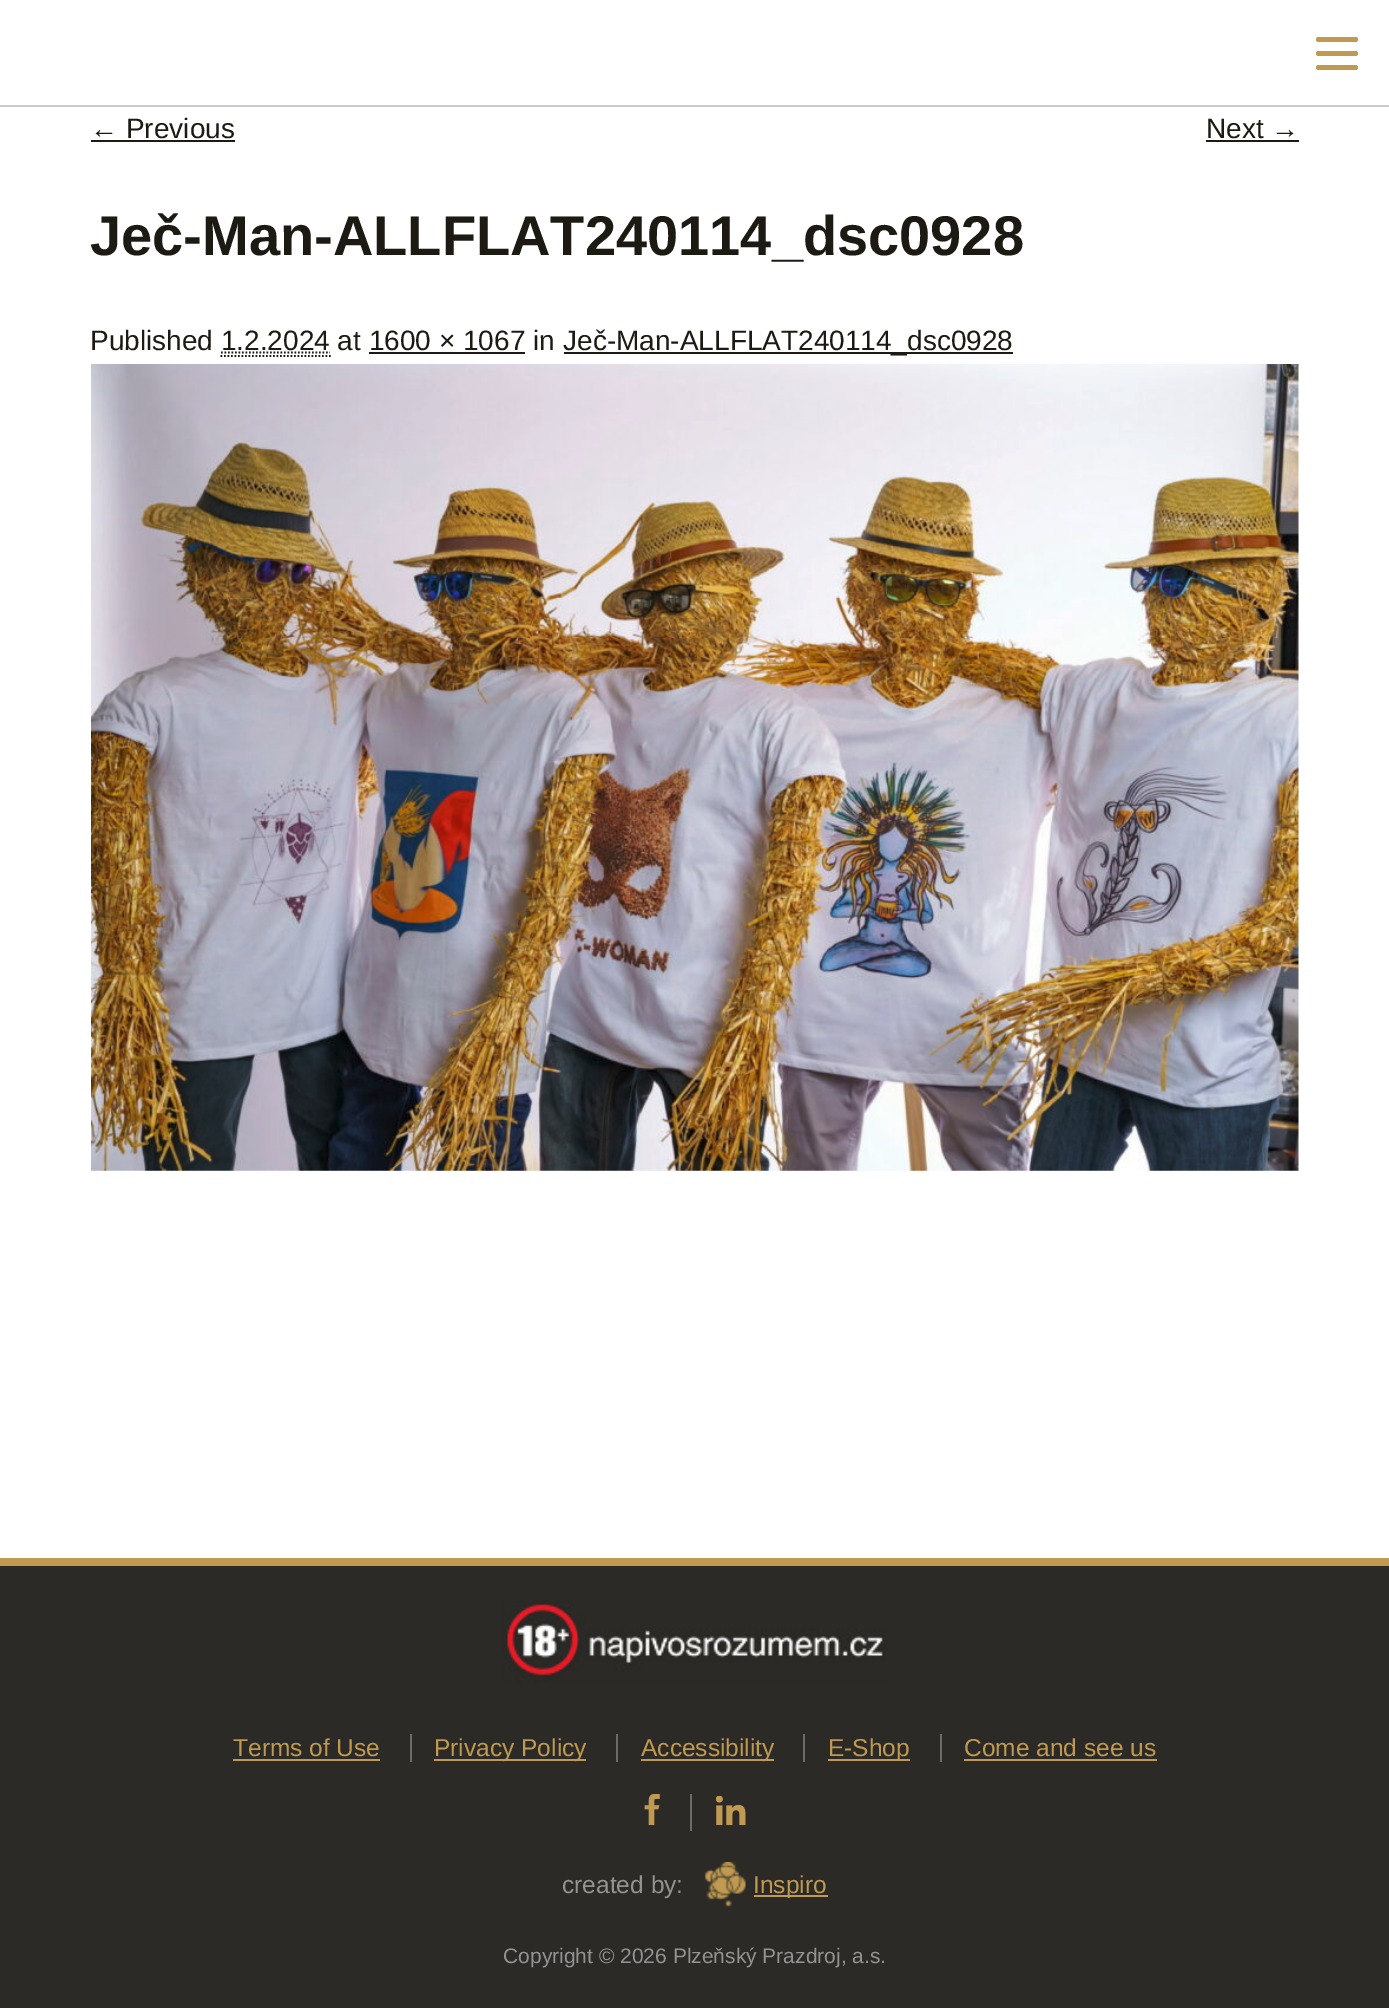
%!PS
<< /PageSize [1389 2008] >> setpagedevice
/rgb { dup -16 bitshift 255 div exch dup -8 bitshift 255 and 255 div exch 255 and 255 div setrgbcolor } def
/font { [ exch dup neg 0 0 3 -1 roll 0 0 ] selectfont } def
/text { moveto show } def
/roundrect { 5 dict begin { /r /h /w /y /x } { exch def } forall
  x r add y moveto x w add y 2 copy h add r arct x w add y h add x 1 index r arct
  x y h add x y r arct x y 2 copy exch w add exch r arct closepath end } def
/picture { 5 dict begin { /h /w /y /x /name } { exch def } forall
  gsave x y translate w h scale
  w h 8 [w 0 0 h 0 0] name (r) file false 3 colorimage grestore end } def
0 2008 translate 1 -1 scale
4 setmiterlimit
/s1 { /LiberationSans-Regular 28 font 16#1D1A13 rgb } def
/s2 { /LiberationSans-Bold 56 font 16#1D1A13 rgb } def
/s3 { /LiberationSans-Regular 24.5 font 16#C09A51 rgb } def
/s4 { /LiberationSans-Regular 24.5 font 16#939393 rgb } def
/s5 { /LiberationSans-Regular 21 font 16#939393 rgb } def
16#FFFFFF rgb
0 0 1389 2008 rectfill
16#CBCBCB rgb
0 105 1389 2 rectfill
16#C09A51 rgb
1316 37 42 5 2.5 roundrect fill
1316 51 42 5 2.5 roundrect fill
1316 65 42 5 2.5 roundrect fill
s1
(← Previous) 90 138 text
91 140 144 2 rectfill
(Next →) 1206 138 text
1206 140 93 2 rectfill
s2
(Ječ-Man-ALLFLAT240114_dsc0928) 90 255 text
s1
(Published 1.2.2024 at 1600 × 1067 in) 90 350 text
564 352 449 2 rectfill
(Ječ-Man-ALLFLAT240114_dsc0928) 563 350 text
1.8 setlinewidth
[1.75 1.75] 0 setdash
221 352.5 moveto 330 352.5 lineto stroke
369 352 156 2 rectfill
220.5 356 moveto 331 356 lineto stroke
(pic1.raw) 91 364 1208 807 picture
16#2C2A27 rgb
0 1566 1389 442 rectfill
16#C09A51 rgb
0 1558 1389 8 rectfill
(pic2.raw) 502 1601 385 81 picture
s3
(Terms of Use) 233 1756 text
233 1759 147 2 rectfill
16#6B6B6B rgb
410 1734 2 28 rectfill
16#C09A51 rgb
434 1759 152 2 rectfill
(Privacy Policy) 434 1756 text
16#6B6B6B rgb
616 1734 2 28 rectfill
16#C09A51 rgb
641 1759 133 2 rectfill
(Accessibility) 641 1756 text
16#6B6B6B rgb
803 1734 2 28 rectfill
16#C09A51 rgb
828 1759 82 2 rectfill
(E-Shop) 828 1756 text
16#6B6B6B rgb
940 1734 2 28 rectfill
s3
(Come and see us) 964 1756 text
964 1759 193 2 rectfill
(pic3.raw) 644 1794 16 31 picture
16#6B6B6B rgb
690 1794 2 37 rectfill
(pic4.raw) 716 1796 30 29 picture
s4
(created by:) 562 1893 text
(pic5.raw) 704 1862 42 45 picture
16#C09A51 rgb
754 1895 74 2 rectfill
(Inspiro) 753 1893 text
s5
(Copyright © 2026 Plzeňský Prazdroj, a.s.) 503 1963 text
showpage
